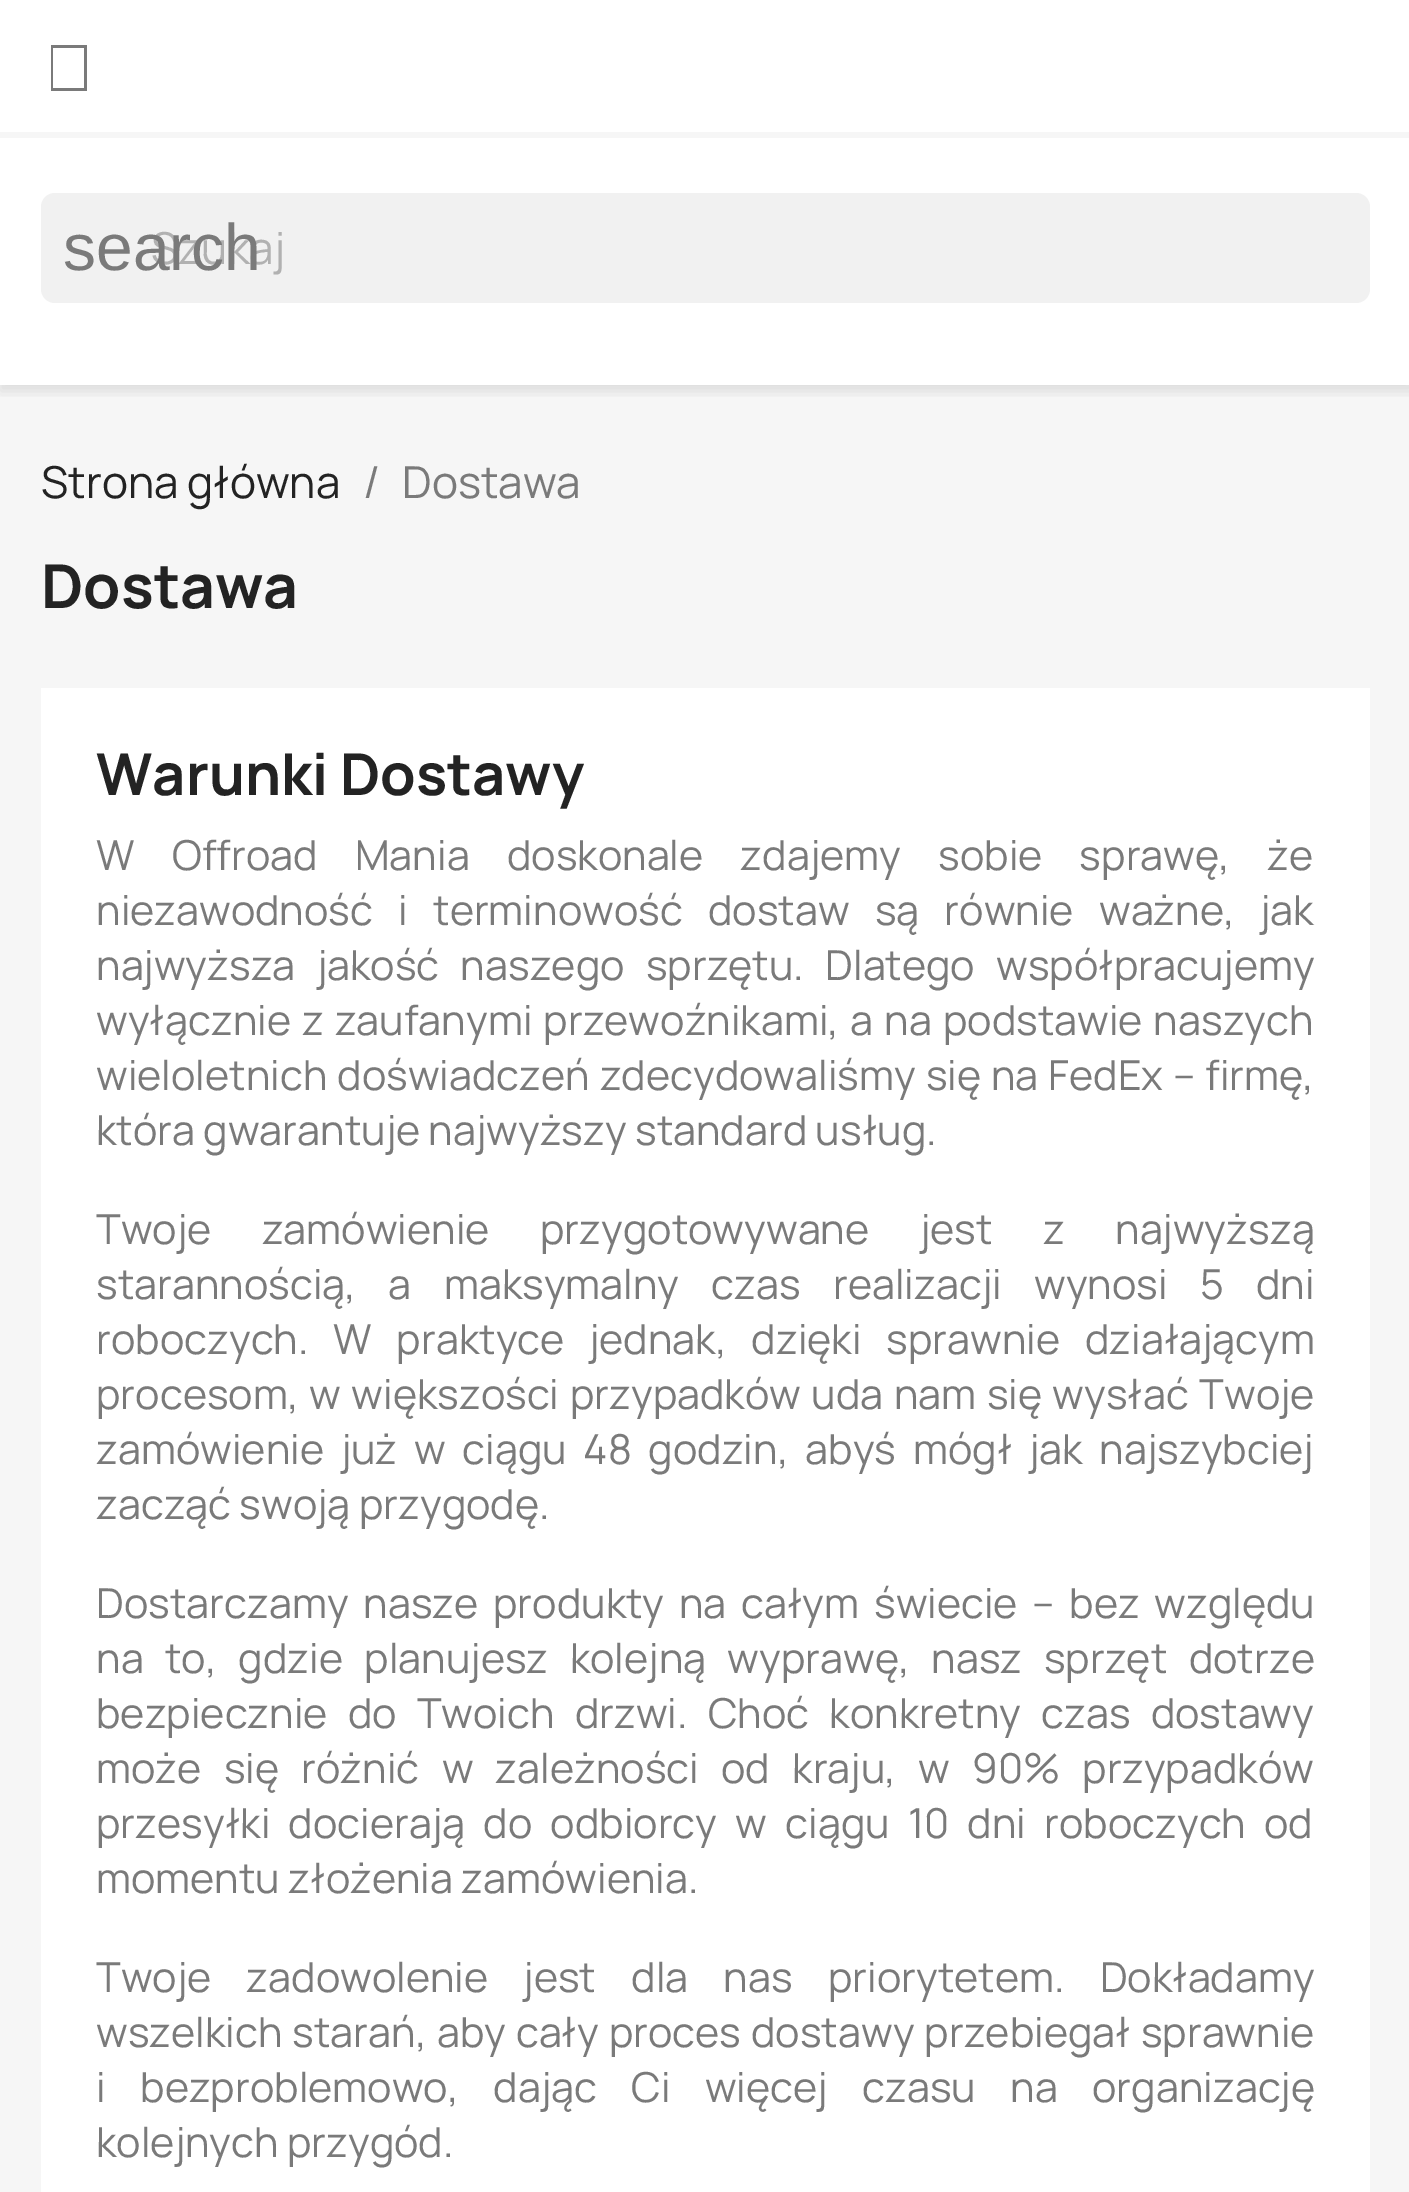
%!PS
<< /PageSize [1409 2192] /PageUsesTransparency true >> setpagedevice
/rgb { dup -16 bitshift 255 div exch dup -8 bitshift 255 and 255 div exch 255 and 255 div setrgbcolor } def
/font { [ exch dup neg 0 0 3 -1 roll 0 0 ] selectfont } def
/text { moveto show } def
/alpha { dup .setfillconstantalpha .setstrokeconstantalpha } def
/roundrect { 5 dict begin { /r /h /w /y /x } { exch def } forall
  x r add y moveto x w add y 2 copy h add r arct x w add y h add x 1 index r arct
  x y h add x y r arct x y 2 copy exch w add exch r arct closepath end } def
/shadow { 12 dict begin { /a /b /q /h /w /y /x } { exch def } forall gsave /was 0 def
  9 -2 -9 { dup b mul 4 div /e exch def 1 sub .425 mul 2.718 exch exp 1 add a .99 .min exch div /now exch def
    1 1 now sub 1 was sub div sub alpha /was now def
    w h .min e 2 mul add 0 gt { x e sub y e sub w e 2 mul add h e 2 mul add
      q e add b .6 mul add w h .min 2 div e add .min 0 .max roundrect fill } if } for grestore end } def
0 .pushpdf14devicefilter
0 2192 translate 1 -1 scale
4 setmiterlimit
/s1 { /Manrope-Regular 44 font 16#B1B1B1 rgb } def
/s2 { /LiberationSans-Regular 66 font 16#7A7A7A rgb } def
/s3 { /Manrope-Regular 44 font 16#232323 rgb } def
/s4 { /Manrope-Regular 44 font 16#7A7A7A rgb } def
/s5 { /Manrope-Bold 60.5 font 16#232323 rgb } def
/s6 { /Manrope-Bold 57.75 font 16#232323 rgb } def
/s7 { /Manrope-Regular 41.25 font 16#7A7A7A rgb } def
16#FFFFFF rgb
0 0 1409 2192 rectfill
16#F6F6F6 rgb
0 385 1409 1807 rectfill
gsave
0 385 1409 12 rectclip
16#000000 rgb
0 6 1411 385 0 7 0.11 shadow
grestore
0 132 1409 6 rectfill
16#7A7A7A rgb
51 45 moveto 87 45 lineto 87 91 lineto 51 91 lineto closepath 53 48 moveto 53 88 lineto 84 88 lineto 84 48 lineto closepath fill
16#F1F1F1 rgb
41 193 1329 110 14 roundrect fill
s1
(Szukaj) 151 264 text
s2
(search) 63 270 text
s3
(Strona główna) 41 498 text
s4
(/) 363 498 text
(Dostawa) 402 498 text
s5
(Dostawa) 41 608 text
16#FFFFFF rgb
41 688 1329 1504 rectfill
s6
(Warunki Dostawy) 96 795 text
/Manrope-Regular 41.25 font
16#7A7A7A rgb
96 870 moveto 29 0 32 (W Offroad Mania doskonale zdajemy sobie sprawę, że) widthshow
96 925 moveto 17 0 32 (niezawodność i terminowość dostaw są równie ważne, jak) widthshow
96 980 moveto 13 0 32 (najwyższa jakość naszego sprzętu. Dlatego współpracujemy) widthshow
96 1035 moveto 2.75 0 32 (wyłącznie z zaufanymi przewoźnikami, a na podstawie naszych) widthshow
96 1090 moveto 1.75 0 32 (wieloletnich doświadczeń zdecydowaliśmy się na FedEx – firmę,) widthshow
(która gwarantuje najwyższy standard usług.) 96 1145 text
96 1244 moveto 42.25 0 32 (Twoje zamówienie przygotowywane jest z najwyższą) widthshow
96 1299 moveto 24 0 32 (starannością, a maksymalny czas realizacji wynosi 5 dni) widthshow
96 1354 moveto 16.5 0 32 (roboczych. W praktyce jednak, dzięki sprawnie działającym) widthshow
96 1409 moveto 2.25 0 32 (procesom, w większości przypadków uda nam się wysłać Twoje) widthshow
96 1464 moveto 8.5 0 32 (zamówienie już w ciągu 48 godzin, abyś mógł jak najszybciej) widthshow
(zacząć swoją przygodę.) 96 1519 text
96 1618 moveto 6.5 0 32 (Dostarczamy nasze produkty na całym świecie – bez względu) widthshow
96 1673 moveto 13.25 0 32 (na to, gdzie planujesz kolejną wyprawę, nasz sprzęt dotrze) widthshow
96 1728 moveto 12 0 32 (bezpiecznie do Twoich drzwi. Choć konkretny czas dostawy) widthshow
96 1783 moveto 14 0 32 (może się różnić w zależności od kraju, w 90% przypadków) widthshow
96 1838 moveto 10 0 32 (przesyłki docierają do odbiorcy w ciągu 10 dni roboczych od) widthshow
(momentu złożenia zamówienia.) 96 1893 text
96 1992 moveto 27 0 32 (Twoje zadowolenie jest dla nas priorytetem. Dokładamy) widthshow
96 2047 moveto 1.75 0 32 (wszelkich starań, aby cały proces dostawy przebiegał sprawnie) widthshow
96 2102 moveto 26.25 0 32 (i bezproblemowo, dając Ci więcej czasu na organizację) widthshow
(kolejnych przygód.) 96 2157 text
.poppdf14devicefilter showpage
